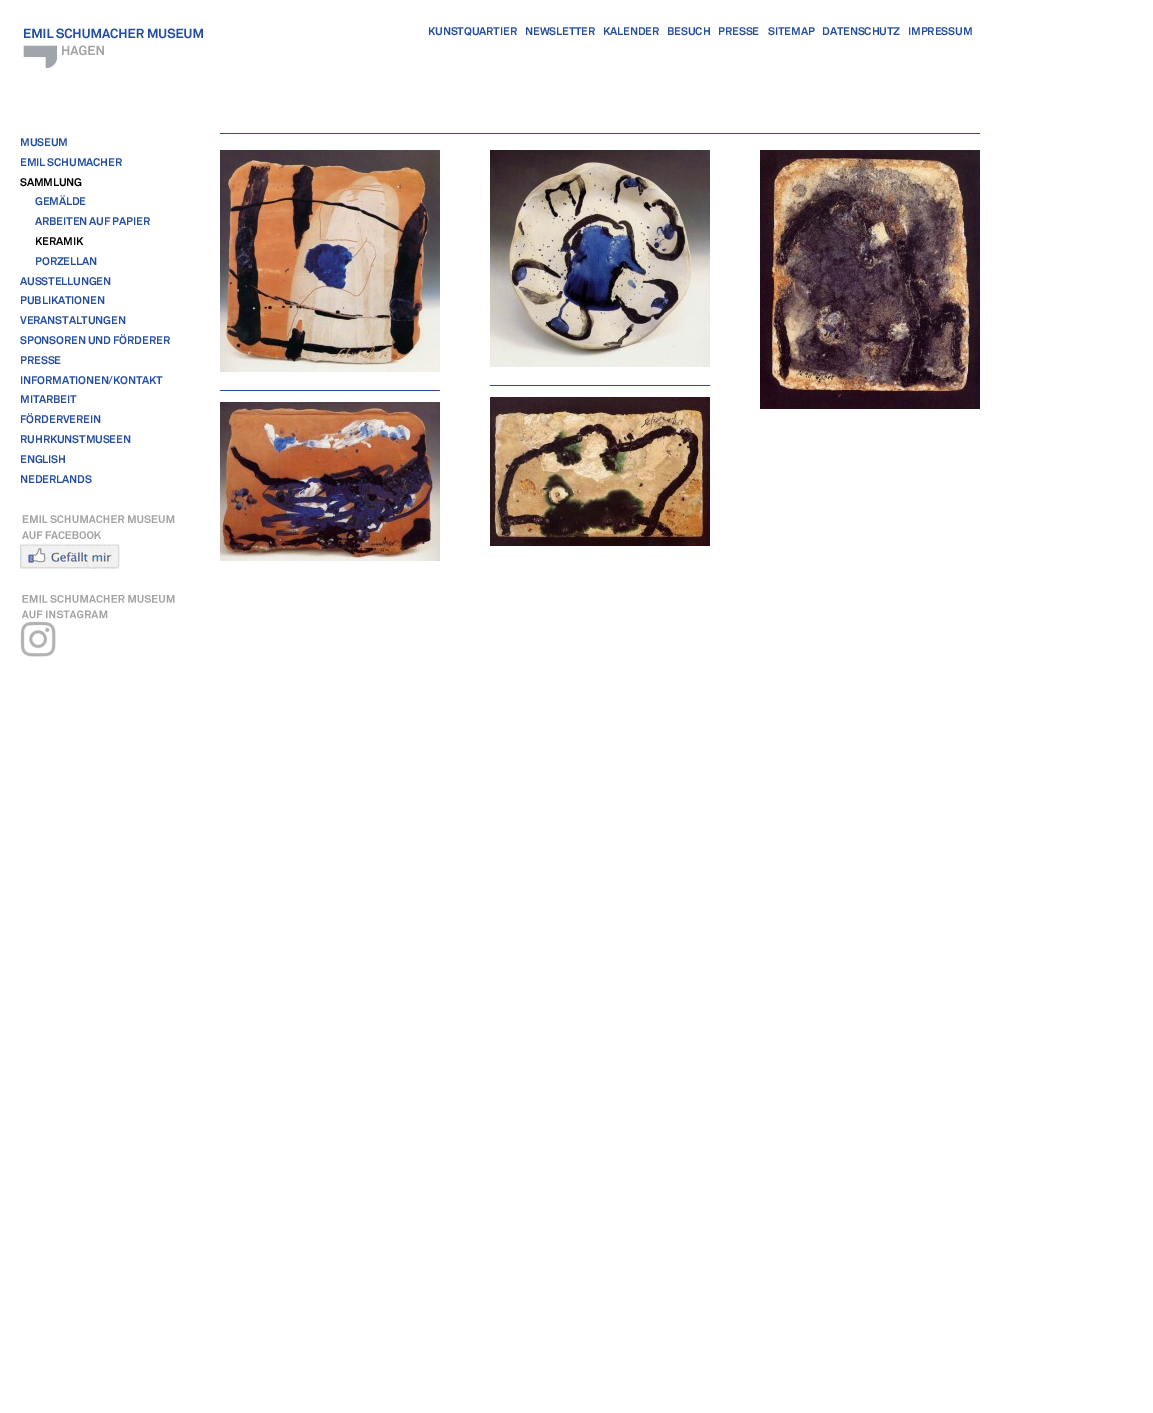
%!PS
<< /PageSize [1153 1413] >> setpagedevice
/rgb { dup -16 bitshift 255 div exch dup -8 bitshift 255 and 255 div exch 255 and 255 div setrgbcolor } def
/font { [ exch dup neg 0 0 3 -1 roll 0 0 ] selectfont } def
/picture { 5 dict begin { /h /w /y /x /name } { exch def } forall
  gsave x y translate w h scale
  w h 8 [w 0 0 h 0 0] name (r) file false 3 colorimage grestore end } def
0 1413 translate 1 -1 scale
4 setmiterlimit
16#FFFFFF rgb
0 0 1153 1413 rectfill
(pic1.raw) 23 28 180 41 picture
/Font-Bold 11 font
16#254E9C rgb
428 35 moveto -0.2 0 (KUNSTQUARTIER) ashow
525 35 moveto -0.2 0 (NEWSLETTER) ashow
603 35 moveto -0.2 0 (KALENDER) ashow
667 35 moveto -0.2 0 (BESUCH) ashow
718 35 moveto -0.2 0 (PRESSE) ashow
768 35 moveto -0.2 0 (SITEMAP) ashow
822 35 moveto -0.2 0 (DATENSCHUTZ) ashow
908 35 moveto -0.2 0 (IMPRESSUM) ashow
20 146 moveto -0.2 0 (MUSEUM) ashow
20 166 moveto -0.2 0 (EMIL SCHUMACHER) ashow
16#000000 rgb
20 186 moveto -0.2 0 (SAMMLUNG) ashow
16#254E9C rgb
35 205 moveto -0.2 0 (GEMÄLDE) ashow
35 225 moveto -0.2 0 (ARBEITEN AUF PAPIER) ashow
16#000000 rgb
35 245 moveto -0.2 0 (KERAMIK) ashow
16#254E9C rgb
35 265 moveto -0.2 0 (PORZELLAN) ashow
20 285 moveto -0.2 0 (AUSSTELLUNGEN) ashow
20 304 moveto -0.2 0 (PUBLIKATIONEN) ashow
20 324 moveto -0.2 0 (VERANSTALTUNGEN) ashow
20 344 moveto -0.2 0 (SPONSOREN UND FÖRDERER) ashow
20 364 moveto -0.2 0 (PRESSE) ashow
20 384 moveto -0.2 0 (INFORMATIONEN/KONTAKT) ashow
20 403 moveto -0.2 0 (MITARBEIT) ashow
20 423 moveto -0.2 0 (FÖRDERVEREIN) ashow
20 443 moveto -0.2 0 (RUHRKUNSTMUSEEN) ashow
20 463 moveto -0.2 0 (ENGLISH) ashow
20 483 moveto -0.2 0 (NEDERLANDS) ashow
(pic2.raw) 20 515 155 54 picture
(pic3.raw) 20 595 155 62 picture
220 133 760 1 rectfill
(pic4.raw) 220 150 220 222 picture
220 390 220 1 rectfill
(pic5.raw) 220 402 220 159 picture
(pic6.raw) 490 150 220 217 picture
490 385 220 1 rectfill
(pic7.raw) 490 397 220 149 picture
(pic8.raw) 760 150 220 259 picture
showpage
